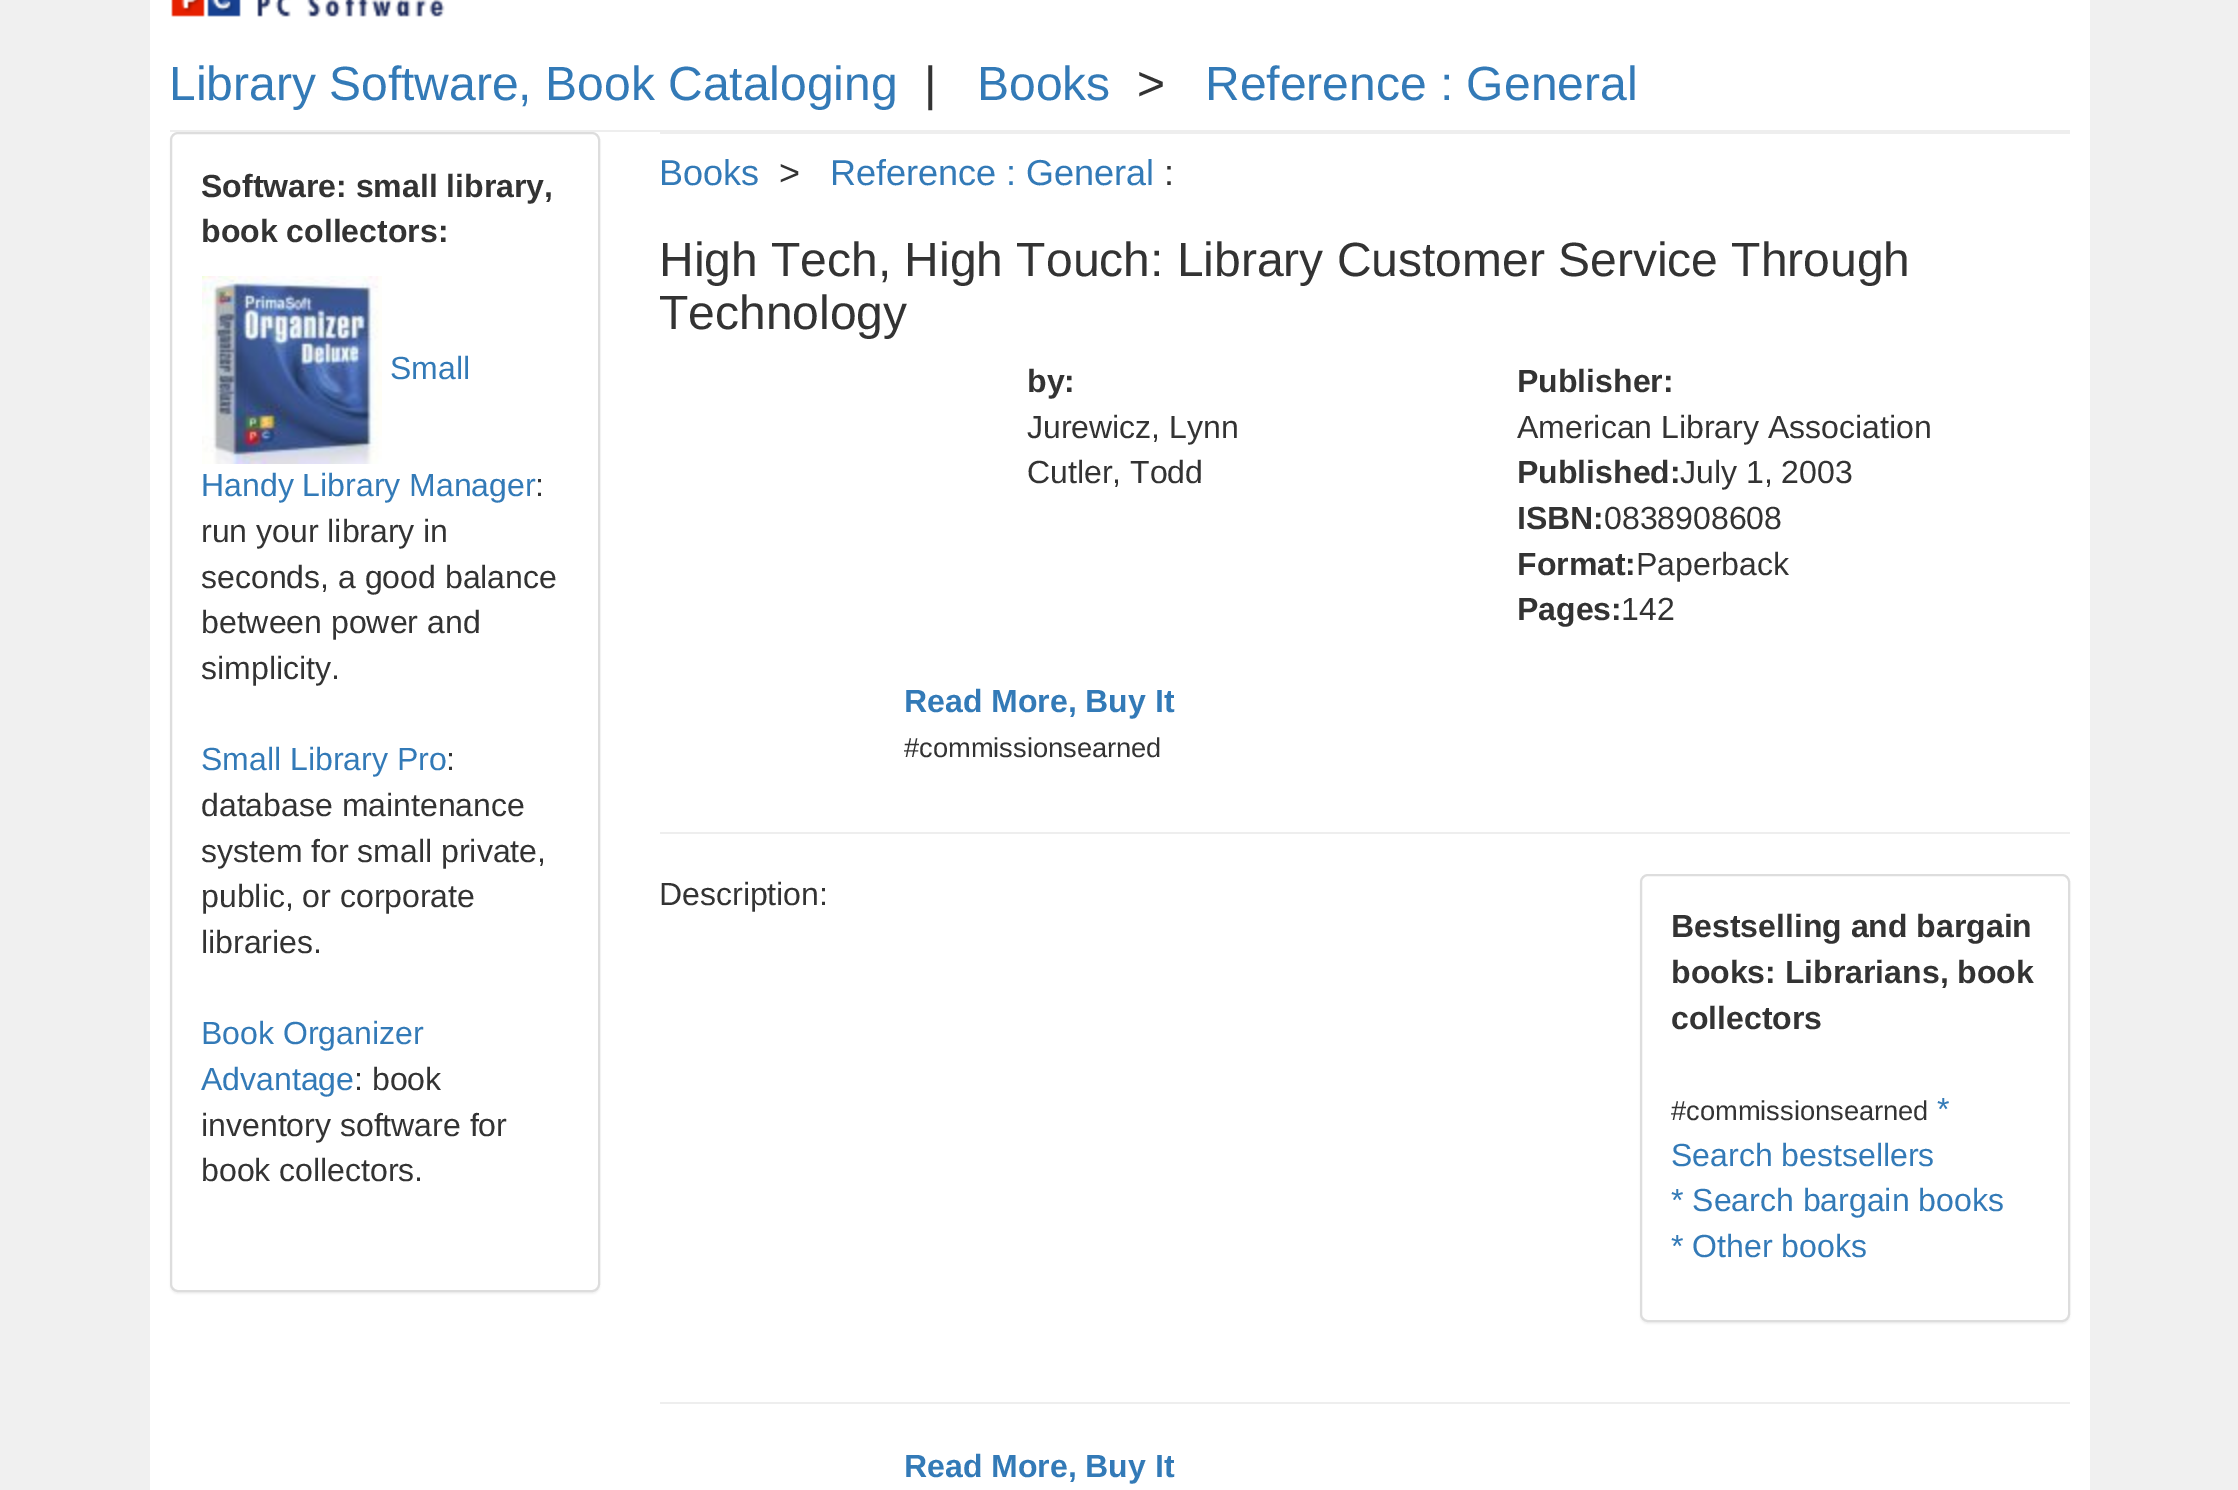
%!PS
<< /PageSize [2238 1490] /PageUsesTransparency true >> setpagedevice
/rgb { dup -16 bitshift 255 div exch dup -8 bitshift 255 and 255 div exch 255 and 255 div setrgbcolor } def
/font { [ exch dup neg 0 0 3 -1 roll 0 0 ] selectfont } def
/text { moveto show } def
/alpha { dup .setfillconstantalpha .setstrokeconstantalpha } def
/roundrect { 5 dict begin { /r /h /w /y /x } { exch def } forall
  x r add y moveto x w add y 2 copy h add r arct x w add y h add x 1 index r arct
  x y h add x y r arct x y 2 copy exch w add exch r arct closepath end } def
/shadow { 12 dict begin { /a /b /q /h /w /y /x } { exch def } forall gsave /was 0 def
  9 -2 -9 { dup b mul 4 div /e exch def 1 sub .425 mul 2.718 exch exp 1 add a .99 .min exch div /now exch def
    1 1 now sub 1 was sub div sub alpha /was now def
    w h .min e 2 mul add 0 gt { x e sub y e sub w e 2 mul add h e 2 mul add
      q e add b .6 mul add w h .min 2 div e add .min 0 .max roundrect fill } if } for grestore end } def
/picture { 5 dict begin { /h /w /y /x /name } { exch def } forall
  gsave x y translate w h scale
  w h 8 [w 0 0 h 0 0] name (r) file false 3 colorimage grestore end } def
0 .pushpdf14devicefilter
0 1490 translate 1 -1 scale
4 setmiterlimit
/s1 { /LiberationSans-Regular 48 font 16#337AB7 rgb } def
/s2 { /LiberationSans-Regular 48 font 16#333333 rgb } def
/s3 { /LiberationSans-Bold 32 font 16#333333 rgb } def
/s4 { /LiberationSans-Regular 32 font 16#337AB7 rgb } def
/s5 { /LiberationSans-Regular 32 font 16#333333 rgb } def
/s6 { /LiberationSans-Regular 36 font 16#337AB7 rgb } def
/s7 { /LiberationSans-Regular 36 font 16#333333 rgb } def
/s8 { /LiberationSans-Bold 32 font 16#337AB7 rgb } def
/s9 { /LiberationSans-Regular 27.25 font 16#333333 rgb } def
16#F0F0F0 rgb
0 0 2238 1490 rectfill
16#FFFFFF rgb
150 0 1940 1490 rectfill
(pic1.raw) 171 0 274 17 picture
s1
(Library Software, Book Cataloging) 169 100 text
s2
(|) 924 100 text
s1
(Books) 977 100 text
s2
(>) 1137 100 text
s1
(Reference : General) 1205 100 text
16#EEEEEE rgb
170 130 1900 2 rectfill
16#000000 rgb
170 134 430 1160 8 1 0.05 shadow
16#FFFFFF rgb
171 133 428 1158 7 roundrect gsave fill grestore
16#DDDDDD rgb
2 setlinewidth
stroke
s3
(Software: small library,) 201 197 text
(book collectors:) 201 242 text
(pic2.raw) 202 276 180 188 picture
s4
(Small) 390 379 text
(Handy Library Manager) 201 496 text
s5
(:) 535 496 text
(run your library in) 201 542 text
(seconds, a good balance) 201 588 text
(between power and) 201 633 text
(simplicity.) 201 679 text
s4
(Small Library Pro) 201 770 text
s5
(:) 446 770 text
(database maintenance) 201 816 text
(system for small private,) 201 862 text
(public, or corporate) 201 907 text
(libraries.) 201 953 text
s4
(Book Organizer) 201 1044 text
(Advantage) 201 1090 text
s5
(: book) 354 1090 text
(inventory software for) 201 1136 text
(book collectors.) 201 1181 text
16#EEEEEE rgb
660 132 1410 2 rectfill
s6
(Books) 659 185 text
s7
(>) 779 185 text
s6
(Reference : General) 830 185 text
s7
(:) 1164 185 text
s2
(High Tech, High Touch: Library Customer Service Through) 659 276 text
(Technology) 659 329 text
s3
(by:) 1027 392 text
s5
(Jurewicz, Lynn) 1027 438 text
(Cutler, Todd) 1027 483 text
s3
(Publisher:) 1517 392 text
s5
(American Library Association) 1517 438 text
s3
(Published:) 1517 483 text
s5
(July 1, 2003) 1680 483 text
s3
(ISBN:) 1517 529 text
s5
(0838908608) 1604 529 text
s3
(Format:) 1517 575 text
s5
(Paperback) 1636 575 text
s3
(Pages:) 1517 620 text
s5
(142) 1621 620 text
s8
(Read More, Buy It) 904 712 text
s9
(#commissionsearned) 904 757 text
16#EEEEEE rgb
660 832 1410 2 rectfill
s5
(Description:) 659 905 text
16#000000 rgb
1640 876 430 448 8 1 0.05 shadow
16#FFFFFF rgb
1641 875 428 446 7 roundrect gsave fill grestore
16#DDDDDD rgb
stroke
s3
(Bestselling and bargain) 1671 937 text
(books: Librarians, book) 1671 983 text
(collectors) 1671 1029 text
s9
(#commissionsearned) 1671 1120 text
s4
(*) 1937 1120 text
(Search bestsellers) 1671 1166 text
(* Search bargain books) 1671 1211 text
(* Other books) 1671 1257 text
16#EEEEEE rgb
660 1402 1410 2 rectfill
s8
(Read More, Buy It) 904 1477 text
.poppdf14devicefilter showpage
